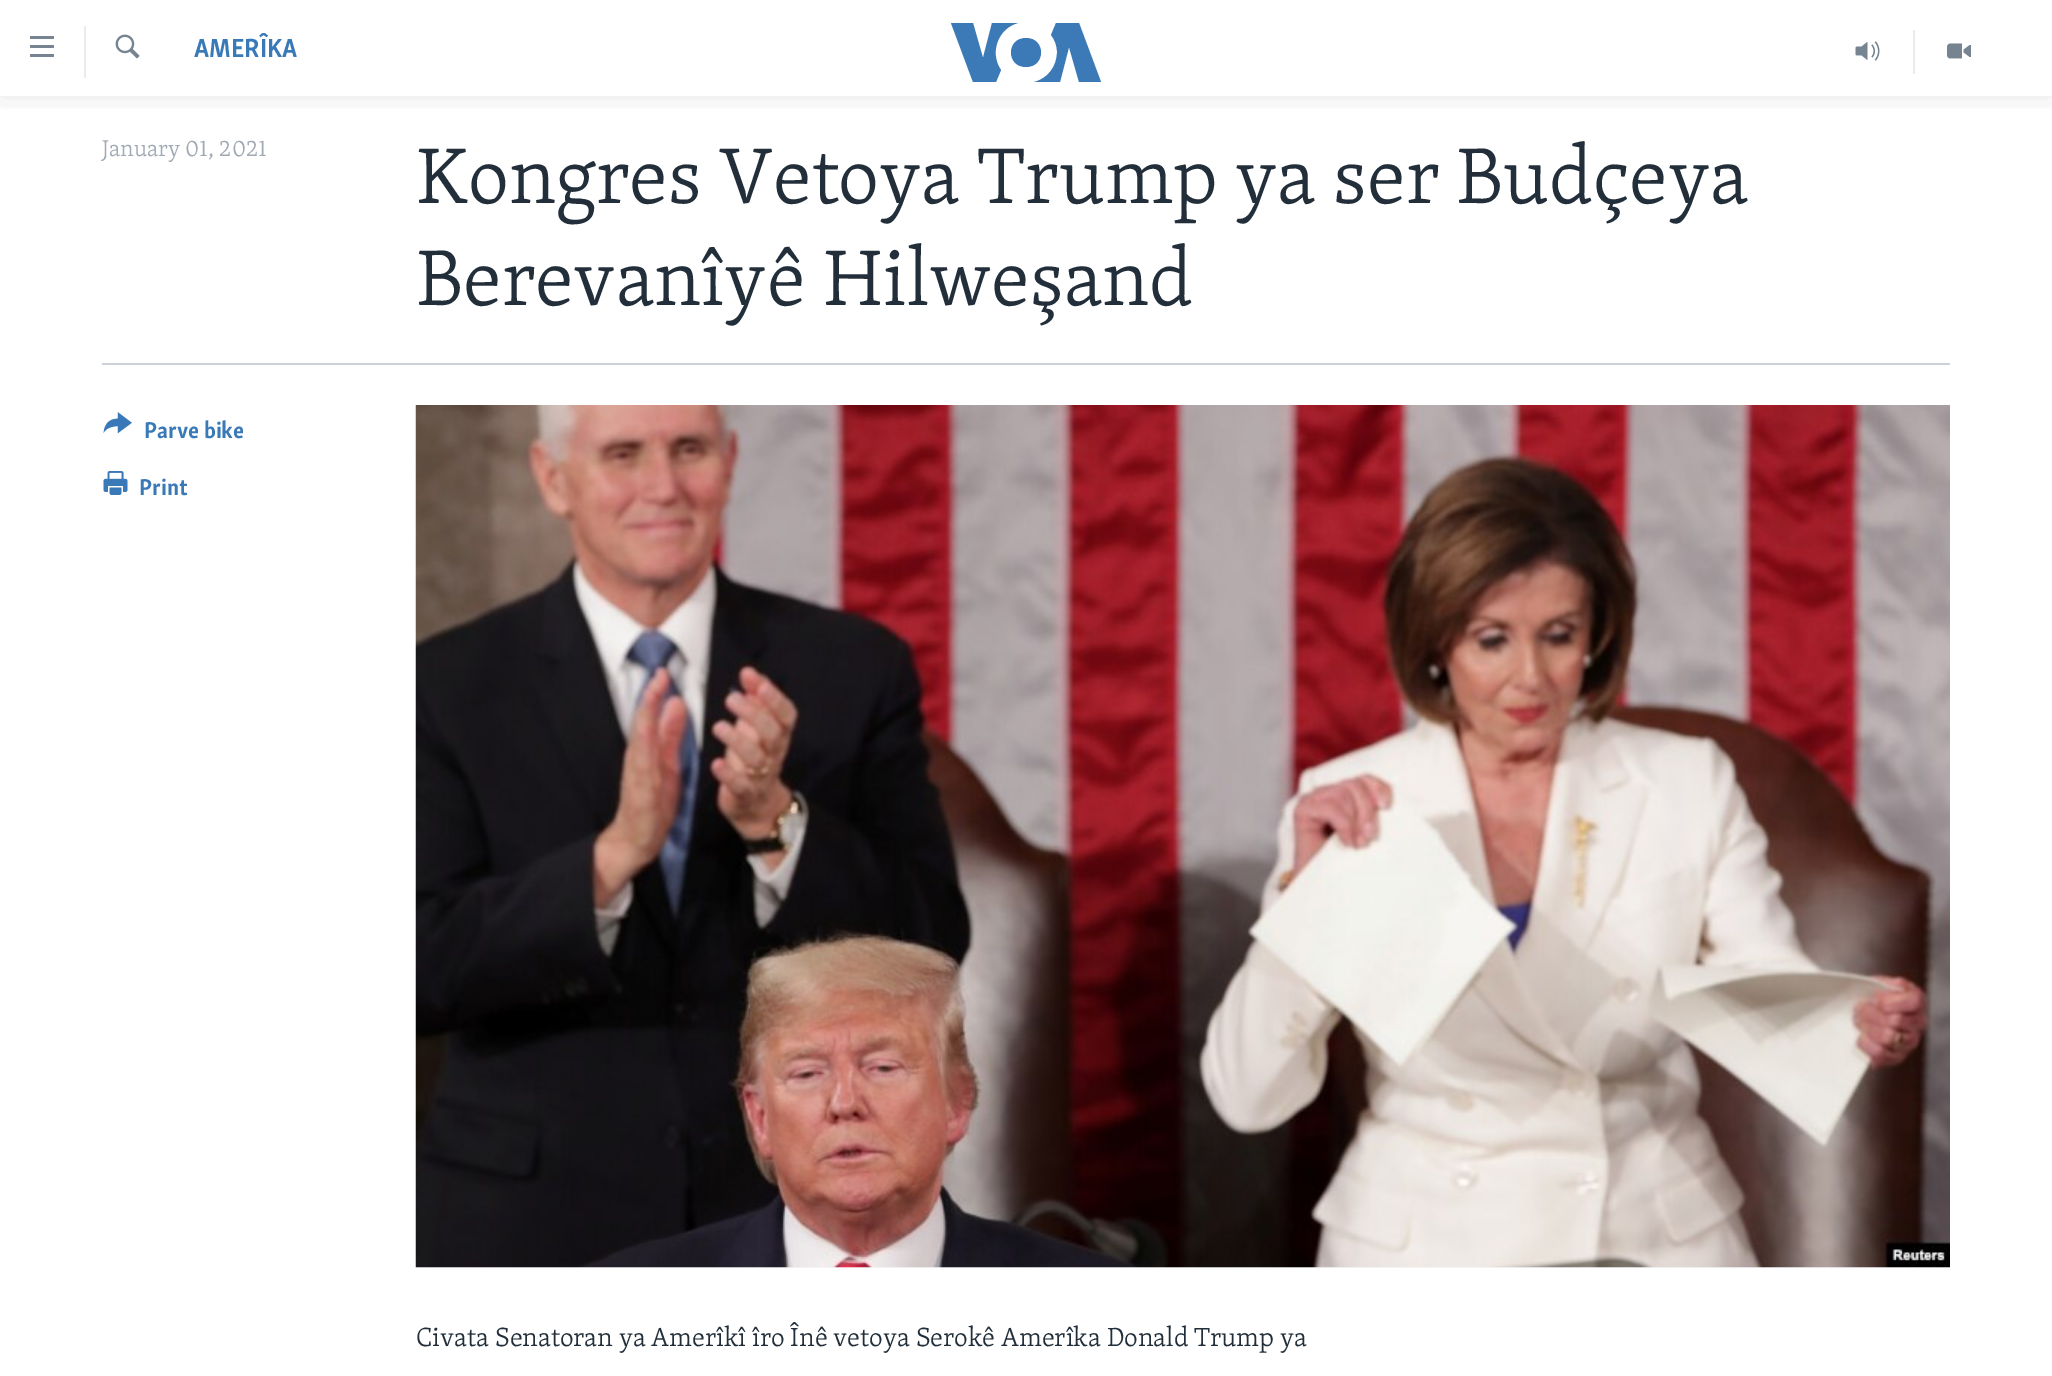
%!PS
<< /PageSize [2052 1376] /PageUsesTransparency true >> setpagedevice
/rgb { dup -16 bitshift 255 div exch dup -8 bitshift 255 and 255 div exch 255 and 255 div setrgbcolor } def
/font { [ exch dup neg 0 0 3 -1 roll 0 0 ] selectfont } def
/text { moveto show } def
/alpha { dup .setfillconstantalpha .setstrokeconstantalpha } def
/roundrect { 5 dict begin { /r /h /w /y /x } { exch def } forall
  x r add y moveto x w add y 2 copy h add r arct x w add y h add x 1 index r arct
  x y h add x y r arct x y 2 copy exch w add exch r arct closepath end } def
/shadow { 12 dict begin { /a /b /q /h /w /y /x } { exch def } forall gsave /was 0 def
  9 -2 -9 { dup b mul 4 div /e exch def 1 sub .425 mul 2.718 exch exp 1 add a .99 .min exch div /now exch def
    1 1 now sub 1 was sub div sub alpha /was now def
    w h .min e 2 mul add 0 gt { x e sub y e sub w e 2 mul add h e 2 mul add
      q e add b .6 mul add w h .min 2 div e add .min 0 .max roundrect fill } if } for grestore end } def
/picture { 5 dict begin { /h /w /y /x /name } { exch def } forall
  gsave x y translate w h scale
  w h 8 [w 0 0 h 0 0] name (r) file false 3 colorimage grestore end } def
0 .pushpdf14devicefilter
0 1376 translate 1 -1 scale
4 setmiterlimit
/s1 { /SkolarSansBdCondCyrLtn-Bold 27 font 16#3A79B7 rgb } def
/s2 { /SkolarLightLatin-Light 23.5 font 16#A1AAB4 rgb } def
/s3 { /SkolarLightLatin-Light 81 font 16#222F3A rgb } def
/s4 { /SkolarSansBdCondCyrLtn-Bold 23.5 font 16#3A79B7 rgb } def
/s5 { /SkolarLightLatin-Light 27 font 16#222F3A rgb } def
16#FFFFFF rgb
0 0 2052 1376 rectfill
gsave
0 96 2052 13 rectclip
16#000000 rgb
0 0 2052 96 0 15 0.1 shadow
grestore
(pic1.raw) 30 36 24 21 picture
16#EBEBEB rgb
84 26 2 52 rectfill
(pic2.raw) 115 34 25 25 picture
gsave
194 33 103 38 rectclip
s1
(AMERÎKA) 194 57 text
grestore
16#3B79B7 rgb
1001 70 moveto 996 82 lineto 973 82 lineto 951 23 lineto 973 23 lineto 983 58 lineto 992 23 lineto 1018 23 lineto 998 28 989 53 1001 70 curveto closepath 1026 38 moveto 1006 38 1006 67 1026 67 curveto 1046 67 1046 38 1026 38 curveto closepath 1057 52 moveto 1057 67 1047 79 1034 82 curveto 1060 82 lineto 1069 47 lineto 1079 82 lineto 1101 82 lineto 1079 23 lineto 1056 23 lineto 1051 35 lineto 1055 40 1057 46 1057 52 curveto closepath fill
16#EBEBEB rgb
1913 30 2 44 rectfill
(pic3.raw) 1855 41 25 20 picture
(pic4.raw) 1947 43 24 16 picture
s2
(January 01, 2021) 102 156 text
s3
(Kongres Vetoya Trump ya ser Budçeya) 416 203 text
(Berevanîyê Hilweşand) 416 305 text
16#CBD1D6 rgb
102 363 1848 2 rectfill
(pic5.raw) 103 412 29 22 picture
s4
(Parve bike) 144 438 text
(pic6.raw) 103 471 25 24 picture
(Print) 139 495 text
16#F6F7F8 rgb
416 1267 1534 1 rectfill
(pic7.raw) 415 405 1535 863 picture
s5
(Civata Senatoran ya Amerîkî îro Înê vetoya Serokê Amerîka Donald Trump ya) 416 1346 text
.poppdf14devicefilter showpage
